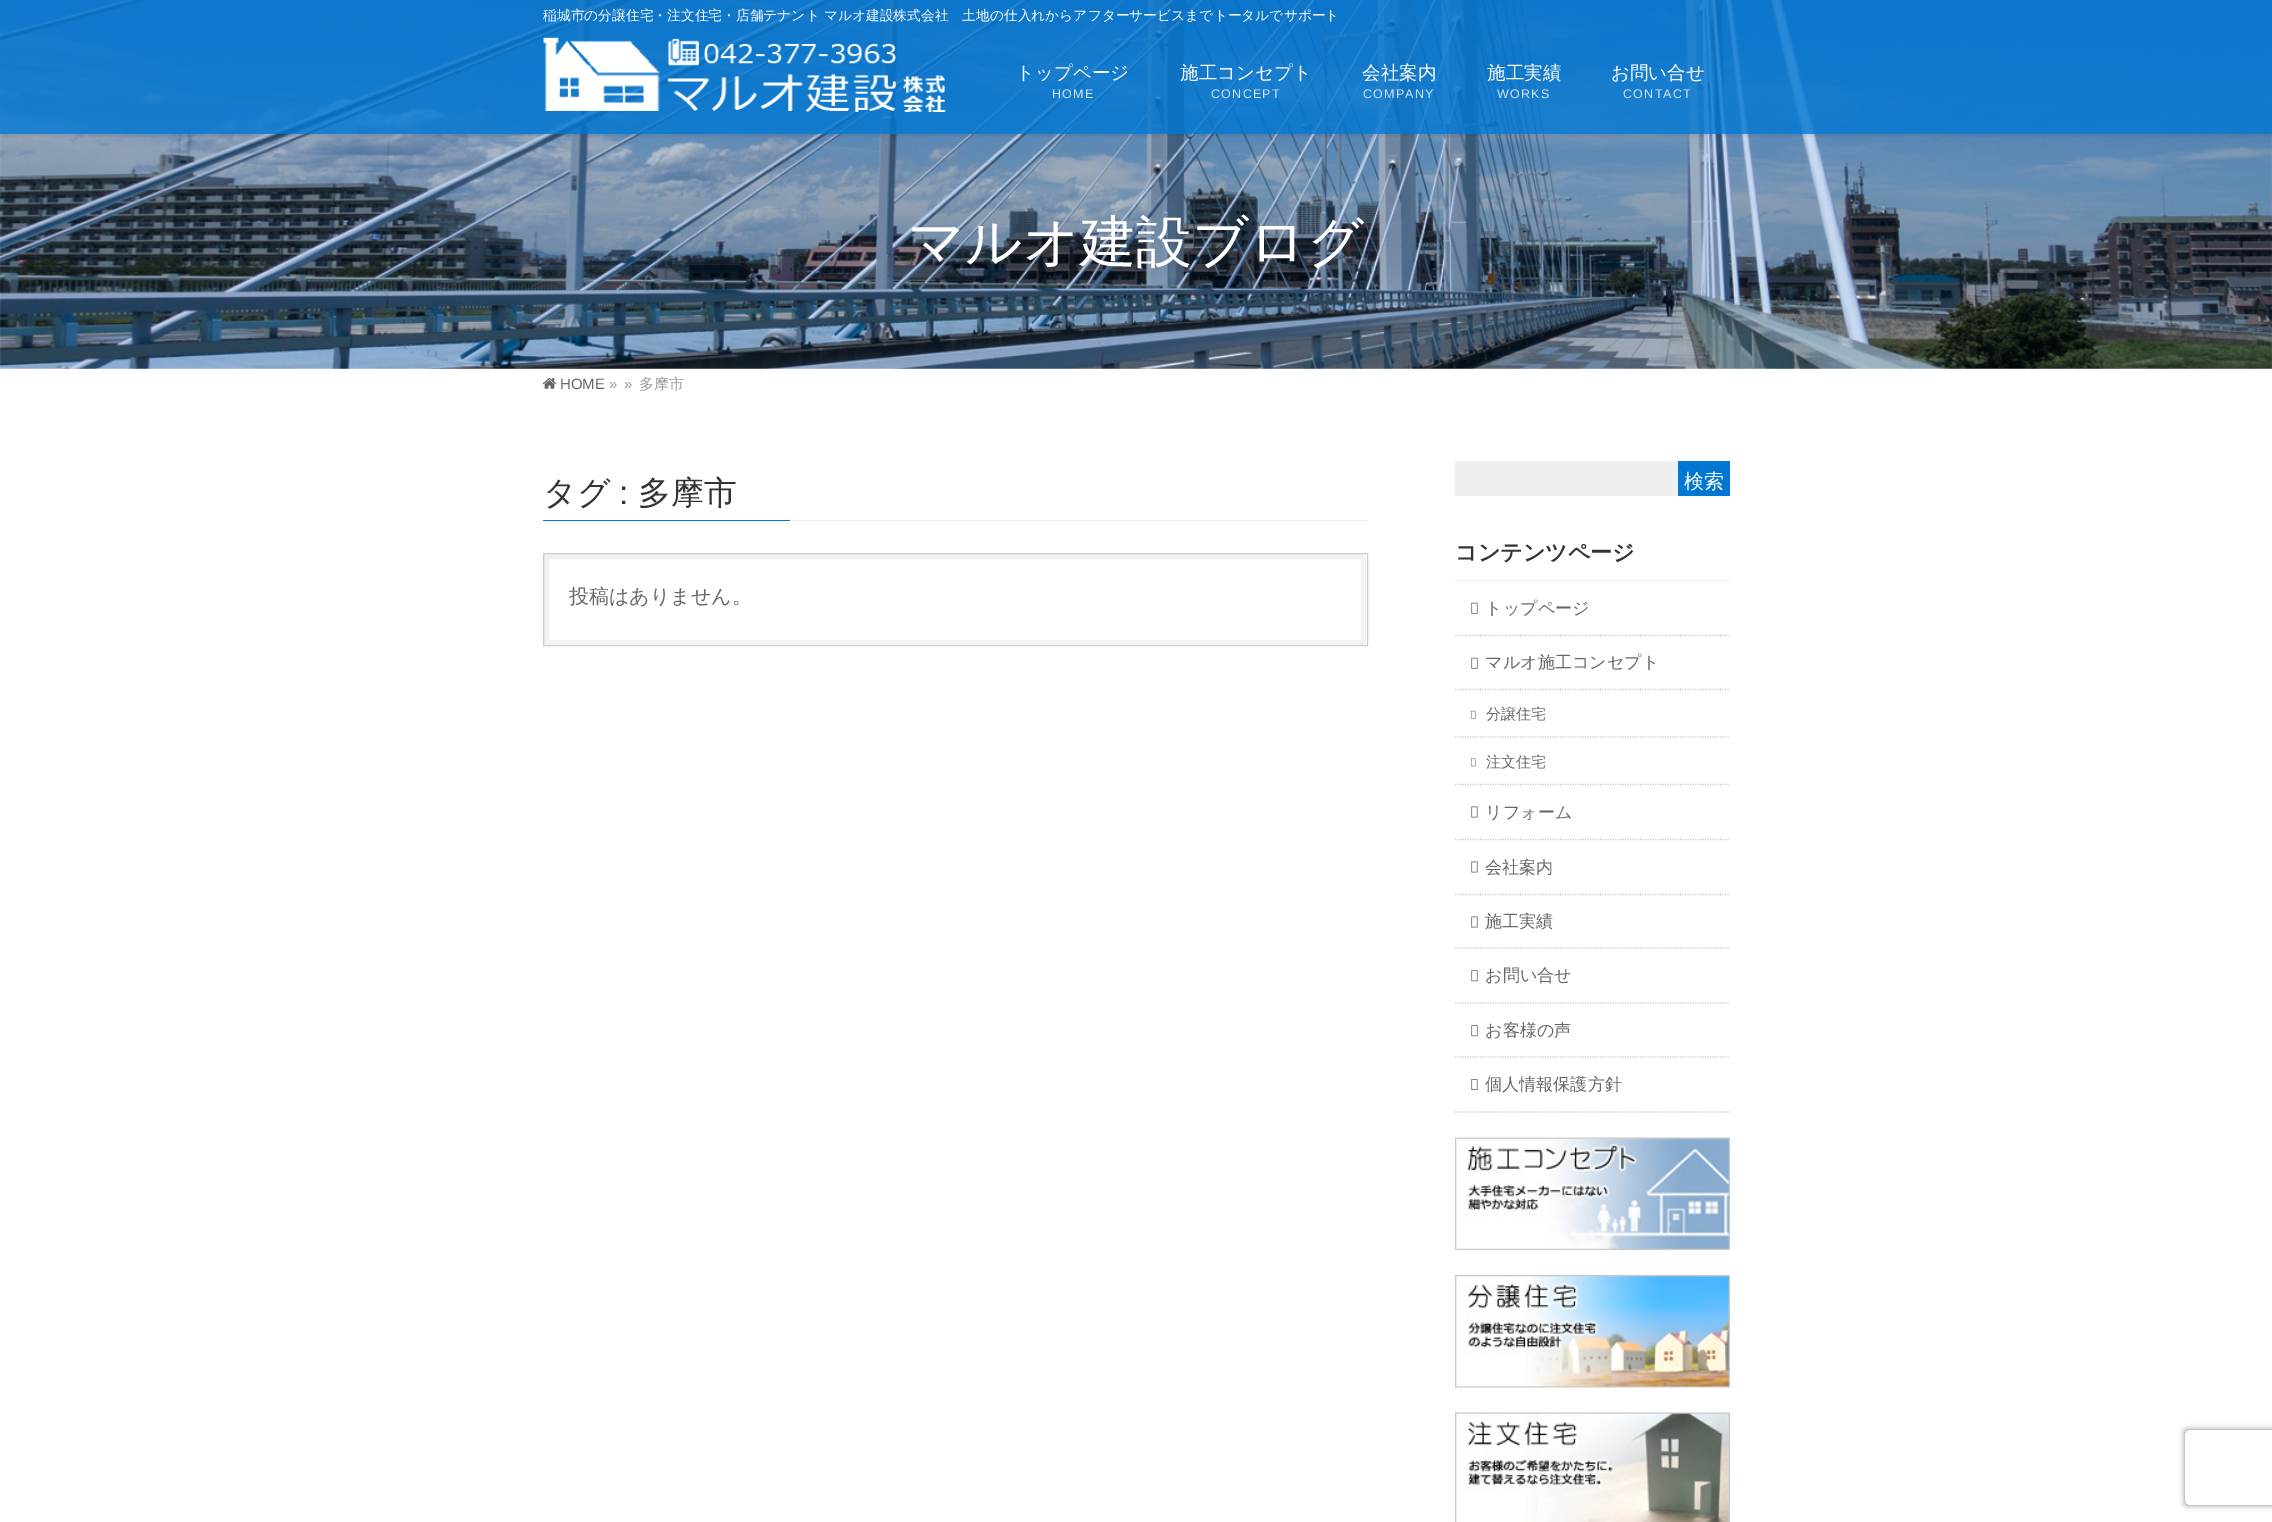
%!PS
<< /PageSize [2272 1522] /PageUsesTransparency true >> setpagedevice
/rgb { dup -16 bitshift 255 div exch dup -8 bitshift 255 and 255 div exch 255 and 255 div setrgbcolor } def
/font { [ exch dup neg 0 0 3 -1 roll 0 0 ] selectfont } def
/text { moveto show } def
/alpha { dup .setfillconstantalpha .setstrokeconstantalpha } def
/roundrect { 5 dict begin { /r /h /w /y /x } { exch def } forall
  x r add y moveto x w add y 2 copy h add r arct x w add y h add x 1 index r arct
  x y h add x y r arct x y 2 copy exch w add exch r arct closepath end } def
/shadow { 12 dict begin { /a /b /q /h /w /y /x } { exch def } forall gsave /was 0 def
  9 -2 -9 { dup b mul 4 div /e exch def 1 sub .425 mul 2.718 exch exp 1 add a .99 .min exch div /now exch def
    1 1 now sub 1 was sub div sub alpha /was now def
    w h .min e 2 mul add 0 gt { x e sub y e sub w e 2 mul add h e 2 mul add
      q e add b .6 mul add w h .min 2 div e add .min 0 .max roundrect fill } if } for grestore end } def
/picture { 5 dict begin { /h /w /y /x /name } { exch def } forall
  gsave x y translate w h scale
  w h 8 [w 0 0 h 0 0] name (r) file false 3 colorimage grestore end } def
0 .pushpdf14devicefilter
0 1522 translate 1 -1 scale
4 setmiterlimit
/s1 { /WenQuanYiZenHei-Medium 13.75 font 16#FFFFFF rgb } def
/s2 { /WenQuanYiZenHei-Medium 18.5 font 16#FFFFFF rgb } def
/s3 { /WenQuanYiZenHei-Medium 56 font 16#FFFFFF rgb } def
/s4 { /LiberationSans-Regular 15 font 16#666666 rgb } def
/s5 { /LiberationSans-Regular 15 font 16#999999 rgb } def
/s6 { /WenQuanYiZenHei-Medium 15 font 16#999999 rgb } def
/s7 { /WenQuanYiZenHei-Medium 33 font 16#333333 rgb } def
/s8 { /LiberationSans-Regular 33 font 16#333333 rgb } def
/s9 { /WenQuanYiZenHei-Medium 20 font 16#666666 rgb } def
/s10 { /WenQuanYiZenHei-Medium 20 font 16#FFFFFF rgb } def
/s11 { /WenQuanYiZenHei-Bold 22 font 16#333333 rgb } def
/s12 { /WenQuanYiZenHei-Medium 17.1 font 16#666666 rgb } def
/s13 { /WenQuanYiZenHei-Medium 15 font 16#666666 rgb } def
16#FFFFFF rgb
0 0 2272 1522 rectfill
(pic2.raw) 0 0 2272 369 picture
gsave
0 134 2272 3 rectclip
16#000000 rgb
0 1 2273 134 0 2 0.1 shadow
grestore
0.8 alpha
16#0077D3 rgb
0 0 2272 134 rectfill
1 alpha
s1
(稲城市の分譲住宅・注文住宅・店舗テナント マルオ建設株式会社　土地の仕入れからアフターサービスまでトータルでサポート) 543 20 text
(pic1.raw) 543 37 403 75 picture
s2
(トップページ) 1016 79 text
/LiberationSans-Regular 12.5 font
16#D0E5F5 rgb
1052 98 moveto 1.25 0 (HOME) ashow
s2
(施工コンセプト) 1180 79 text
/LiberationSans-Regular 12.5 font
16#D0E5F5 rgb
1211 98 moveto 1.25 0 (CONCEPT) ashow
s2
(会社案内) 1362 79 text
/LiberationSans-Regular 12.5 font
16#D0E5F5 rgb
1363 98 moveto 1.25 0 (COMPANY) ashow
s2
(施工実績) 1487 79 text
/LiberationSans-Regular 12.5 font
16#D0E5F5 rgb
1497 98 moveto 1.25 0 (WORKS) ashow
s2
(お問い合せ) 1611 79 text
/LiberationSans-Regular 12.5 font
16#D0E5F5 rgb
1623 98 moveto 1.25 0 (CONTACT) ashow
s3
(マルオ建設ブログ) 908 261 text
(pic3.raw) 543 378 14 11 picture
s4
(HOME) 560 389 text
s5
(») 609 389 text
(») 624 389 text
s6
(多摩市) 639 389 text
16#EEEEEE rgb
790 520 578 1 rectfill
s7
(タグ) 543 504 text
s8
(:) 619 504 text
s7
(多摩市) 638 504 text
16#0077D3 rgb
543 520 247 1 rectfill
16#F2F2F2 rgb
5 setlinewidth
546.5 556.5 817 86 rectstroke
16#CCCCCC rgb
1 setlinewidth
543.5 553.5 824 92 rectstroke
s9
(投稿はありません。) 569 603 text
16#EFEFEF rgb
1455 461 223 35 rectfill
16#0077D3 rgb
1678 461 52 35 rectfill
s10
(検索) 1684 488 text
16#EFEFEF rgb
1455 580 275 1 rectfill
s11
(コンテンツページ) 1455 560 text
16#CCCCCC rgb
1.2 setlinewidth
[1.25 1.25] 0 setdash
1455 635.5 moveto 1730 635.5 lineto stroke
(pic4.raw) 1471 602 7 12 picture
s12
(トップページ) 1485 614 text
16#CCCCCC rgb
1455 784.5 moveto 1730 784.5 lineto stroke
(pic4.raw) 1471 657 7 12 picture
s12
(マルオ施工コンセプト) 1485 668 text
16#CCCCCC rgb
1455 689.5 moveto 1730 689.5 lineto stroke
(pic5.raw) 1470 710 6 9 picture
s13
(分譲住宅) 1486 719 text
16#CCCCCC rgb
1455 737 moveto 1730 737 lineto stroke
(pic6.raw) 1470 758 6 9 picture
s13
(注文住宅) 1486 767 text
16#CCCCCC rgb
1455 839.5 moveto 1730 839.5 lineto stroke
(pic7.raw) 1471 806 7 12 picture
s12
(リフォーム) 1485 818 text
16#CCCCCC rgb
1455 894.5 moveto 1730 894.5 lineto stroke
(pic7.raw) 1471 861 7 12 picture
s12
(会社案内) 1485 873 text
16#CCCCCC rgb
1455 948 moveto 1730 948 lineto stroke
(pic7.raw) 1471 916 7 12 picture
s12
(施工実績) 1485 927 text
16#CCCCCC rgb
1455 1003 moveto 1730 1003 lineto stroke
(pic8.raw) 1471 970 7 12 picture
s12
(お問い合せ) 1485 981 text
16#CCCCCC rgb
1455 1057 moveto 1730 1057 lineto stroke
(pic8.raw) 1471 1025 7 12 picture
s12
(お客様の声) 1485 1036 text
16#CCCCCC rgb
1455 1112 moveto 1730 1112 lineto stroke
(pic9.raw) 1471 1079 7 11 picture
s12
(個人情報保護方針) 1485 1090 text
(pic10.raw) 1455 1137 275 113 picture
(pic11.raw) 1455 1275 275 113 picture
(pic12.raw) 1455 1412 275 110 picture
gsave
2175 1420 moveto 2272 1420 lineto 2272 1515 lineto 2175 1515 lineto closepath 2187.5 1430 moveto 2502.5 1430 lineto 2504 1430 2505 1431 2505 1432.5 curveto 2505 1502.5 lineto 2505 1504 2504 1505 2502.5 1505 curveto 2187.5 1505 lineto 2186 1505 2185 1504 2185 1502.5 curveto 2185 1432.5 lineto 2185 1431 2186 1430 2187.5 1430 curveto closepath eoclip newpath
16#808080 rgb
2185 1430 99 75 2.5 3 1 shadow
grestore
.poppdf14devicefilter showpage
